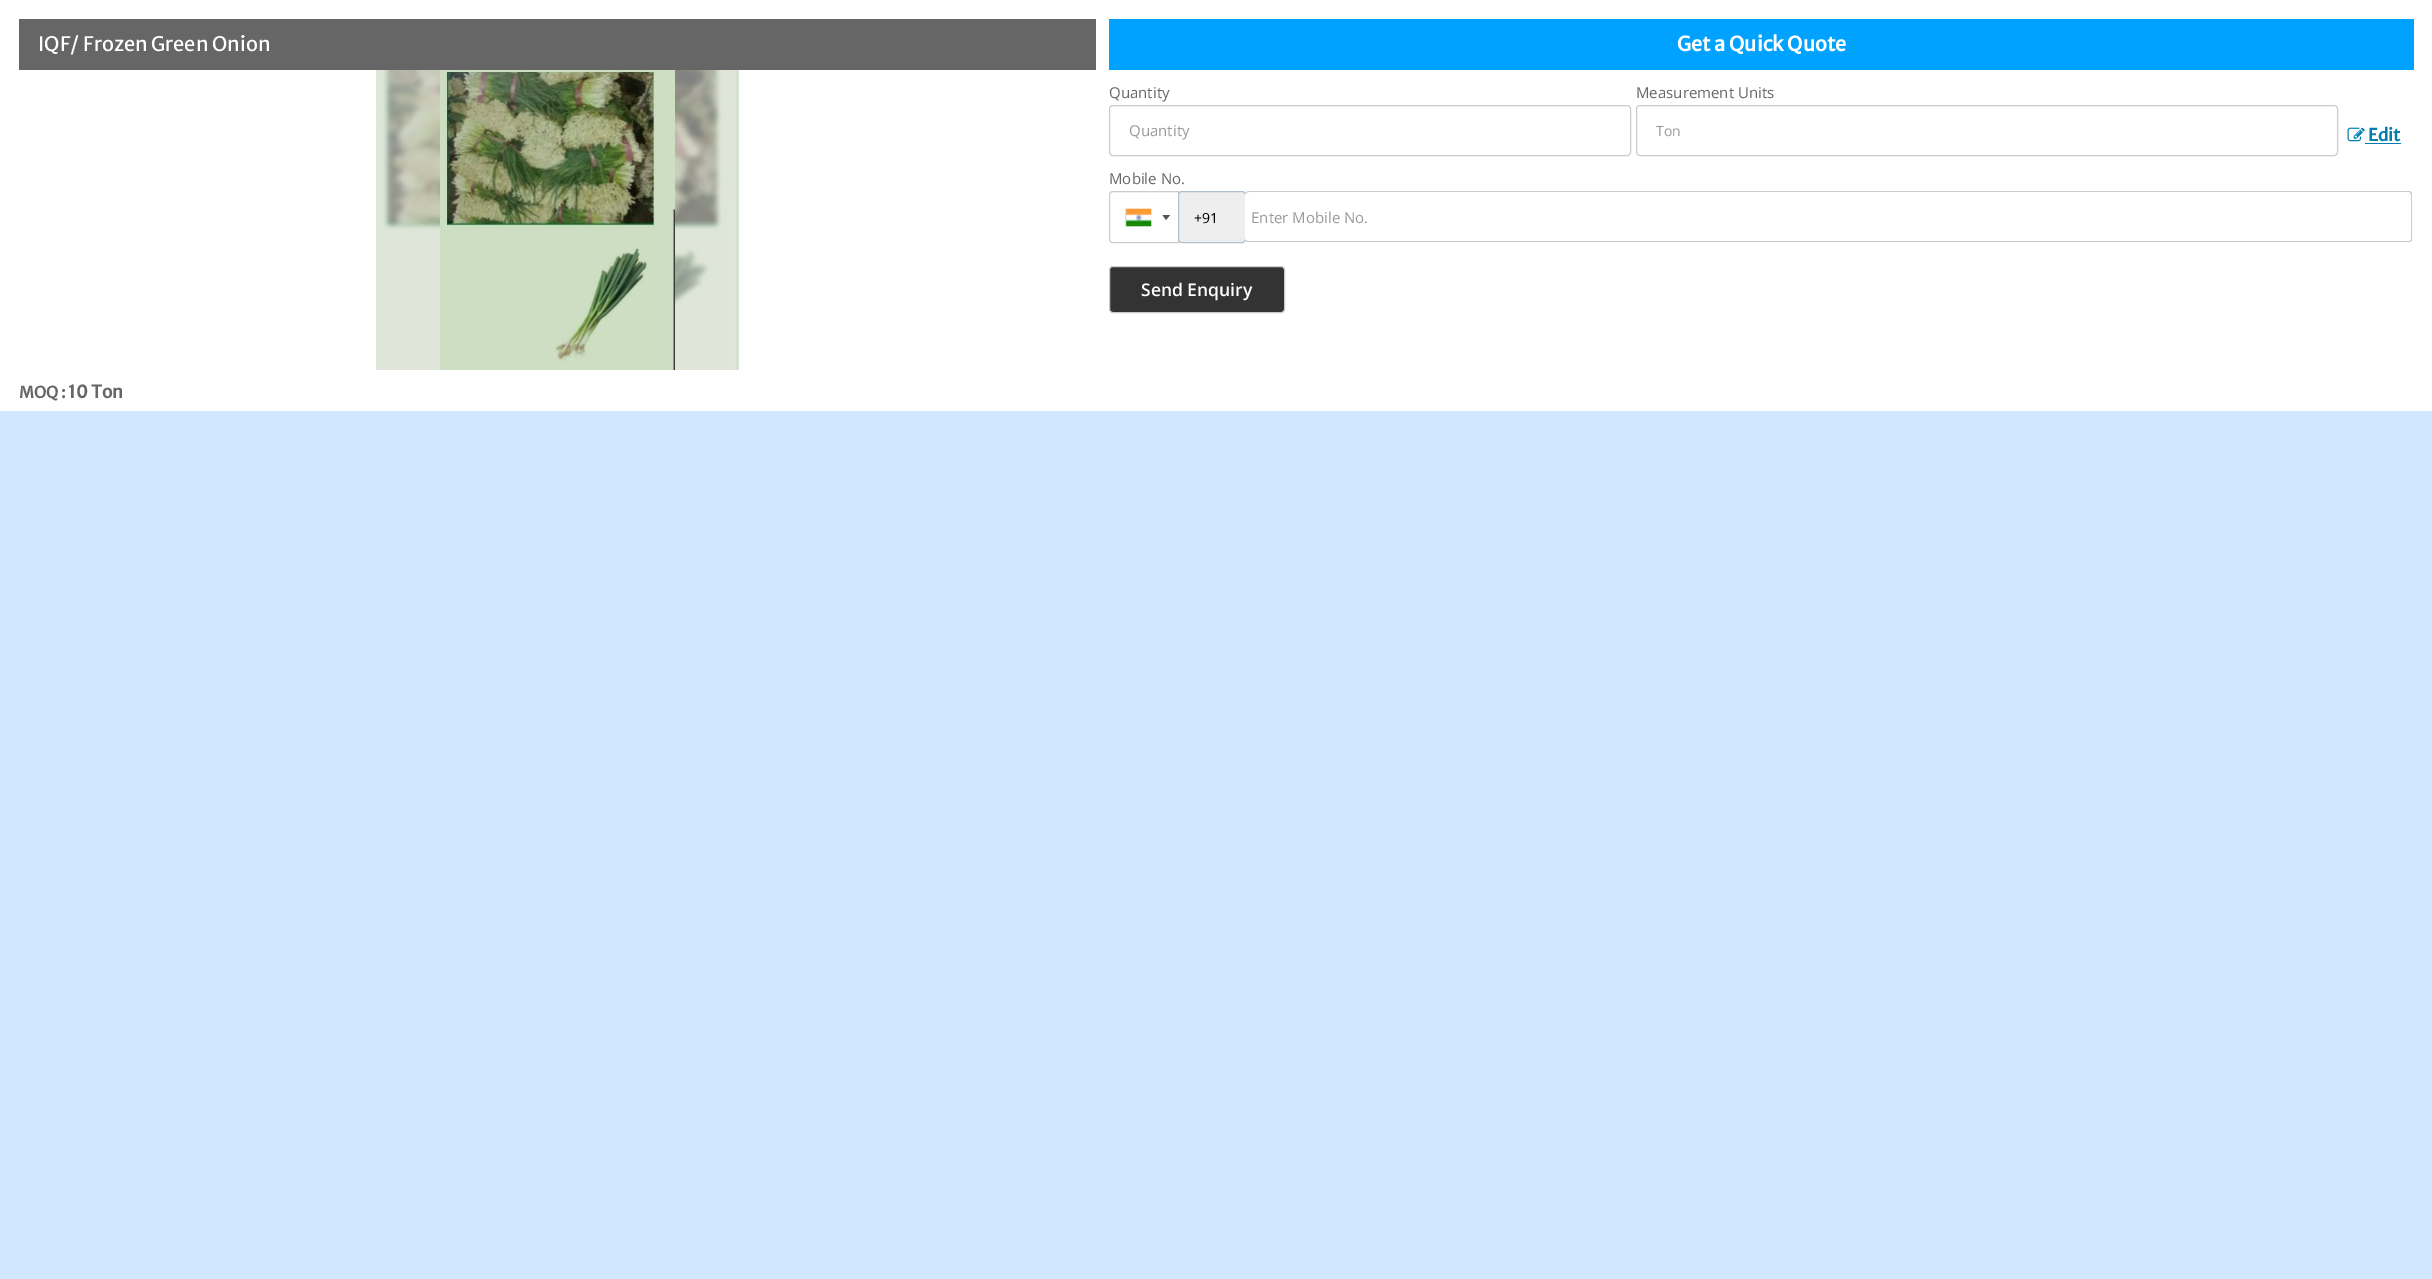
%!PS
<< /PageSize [2432 1279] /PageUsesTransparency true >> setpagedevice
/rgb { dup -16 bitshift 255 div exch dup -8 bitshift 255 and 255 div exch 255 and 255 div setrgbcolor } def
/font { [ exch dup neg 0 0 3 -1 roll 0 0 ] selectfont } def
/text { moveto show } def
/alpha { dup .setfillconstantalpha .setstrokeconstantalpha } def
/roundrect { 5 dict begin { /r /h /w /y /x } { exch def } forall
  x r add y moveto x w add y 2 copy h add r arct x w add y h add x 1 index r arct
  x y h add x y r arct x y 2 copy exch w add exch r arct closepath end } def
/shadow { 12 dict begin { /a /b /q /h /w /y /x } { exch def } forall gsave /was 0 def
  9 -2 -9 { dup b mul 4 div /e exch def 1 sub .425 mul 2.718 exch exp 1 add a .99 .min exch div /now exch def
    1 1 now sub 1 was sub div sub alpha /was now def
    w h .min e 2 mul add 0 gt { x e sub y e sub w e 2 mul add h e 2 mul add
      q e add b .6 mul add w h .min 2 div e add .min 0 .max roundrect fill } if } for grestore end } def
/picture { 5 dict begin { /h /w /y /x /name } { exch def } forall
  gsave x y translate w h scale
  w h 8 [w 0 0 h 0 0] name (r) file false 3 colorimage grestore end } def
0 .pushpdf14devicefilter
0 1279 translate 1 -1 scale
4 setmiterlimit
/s1 { /MerriweatherSans-Regular 20 font 16#FFFFFF rgb } def
/s2 { /MerriweatherSans-Bold 16 font 16#666666 rgb } def
/s3 { /MerriweatherSans-Bold 17.5 font 16#666666 rgb } def
/s4 { /MerriweatherSans-Bold 20 font 16#FFFFFF rgb } def
/s5 { /OpenSans-Regular 15 font 16#666666 rgb } def
/s6 { /OpenSans-Regular 15 font 16#999999 rgb } def
/s7 { /OpenSans-Regular 14 font 16#999999 rgb } def
/s8 { /MerriweatherSans-Bold 17 font 16#037FAF rgb } def
/s9 { /OpenSans-Regular 14 font 16#000000 rgb } def
/s10 { /OpenSans-SemiBold 17.5 font 16#FFFFFF rgb } def
16#D1E6FF rgb
0 0 2432 1279 rectfill
16#FFFFFF rgb
0 0 2432 411 rectfill
16#666666 rgb
19 19 1077 51 rectfill
s1
(IQF/ Frozen Green Onion) 38 51 text
(pic1.raw) 376 70 6 300 picture
gsave
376 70 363 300 rectclip
16#F7F7F7 rgb
14 58 375 325 0 2.5 0.5 shadow
grestore
(pic2.raw) 376 70 360 300 picture
gsave
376 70 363 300 rectclip
16#F7F7F7 rgb
376 58 375 325 0 2.5 0.5 shadow
grestore
(pic3.raw) 440 70 235 300 picture
16#D8E2D1 rgb
736 70 3 300 rectfill
s2
(MOQ :) 19 398 text
s3
(10 Ton) 68 398 text
16#00A2FF rgb
1109 19 1305 51 rectfill
s4
(Get a Quick Quote) 1677 51 text
s5
(Quantity) 1109 98 text
16#CCCCCC rgb
1109.5 105.5 521 50 3.5 roundrect stroke
s6
(Quantity) 1129 136 text
s5
(Measurement Units) 1636 98 text
16#CCCCCC rgb
1636.5 105.5 701 50 3.5 roundrect stroke
s7
(Ton) 1656 136 text
(pic4.raw) 2347 127 18 15 picture
s8
(Edit) 2368 141 text
2365 143 36 1 rectfill
s5
(Mobile No.) 1109 184 text
16#CCCCCC rgb
1113 191.5 moveto 1178.5 191.5 lineto 1178.5 242.5 lineto 1113 242.5 lineto 1111 242.5 1109.5 241 1109.5 239 curveto 1109.5 195 lineto 1109.5 193 1111 191.5 1113 191.5 curveto closepath stroke
16#888888 rgb
1126 209 25 17 0 0.5 1 shadow
(pic5.raw) 1126 208 26 19 picture
16#555555 rgb
1162.5 215 moveto 1170 215 lineto 1166 220 lineto closepath fill
16#EEEEEE rgb
1178.5 191.5 67 51 3.5 roundrect gsave fill grestore
16#B2C1CF rgb
stroke
s9
(+91) 1194 223 text
16#FFFFFF rgb
1249 192 moveto 2409 192 lineto 2410 192 2411 194 2411 195 curveto 2411 239 lineto 2411 240 2410 241 2409 241 curveto 1249 241 lineto 1247 241 1245 240 1245 239 curveto 1245 195 lineto 1245 194 1247 192 1249 192 curveto closepath fill
16#CCCCCC rgb
1249 191 moveto 2409 191 lineto 2411 191 2412 193 2412 195 curveto 2412 239 lineto 2412 241 2411 242 2409 242 curveto 1249 242 lineto 1247 242 1245 241 1245 239 curveto 1245 195 lineto 1245 193 1247 191 1249 191 curveto closepath 1249 192 moveto 2409 192 lineto 2410 192 2411 194 2411 195 curveto 2411 239 lineto 2411 240 2410 241 2409 241 curveto 1249 241 lineto 1247 241 1245 240 1245 239 curveto 1245 195 lineto 1245 194 1247 192 1249 192 curveto closepath eofill
s6
(Enter Mobile No.) 1251 223 text
16#333333 rgb
1109.5 266.5 175 46 3.5 roundrect gsave fill grestore
16#CCCCCC rgb
stroke
s10
(Send Enquiry) 1141 296 text
.poppdf14devicefilter showpage
